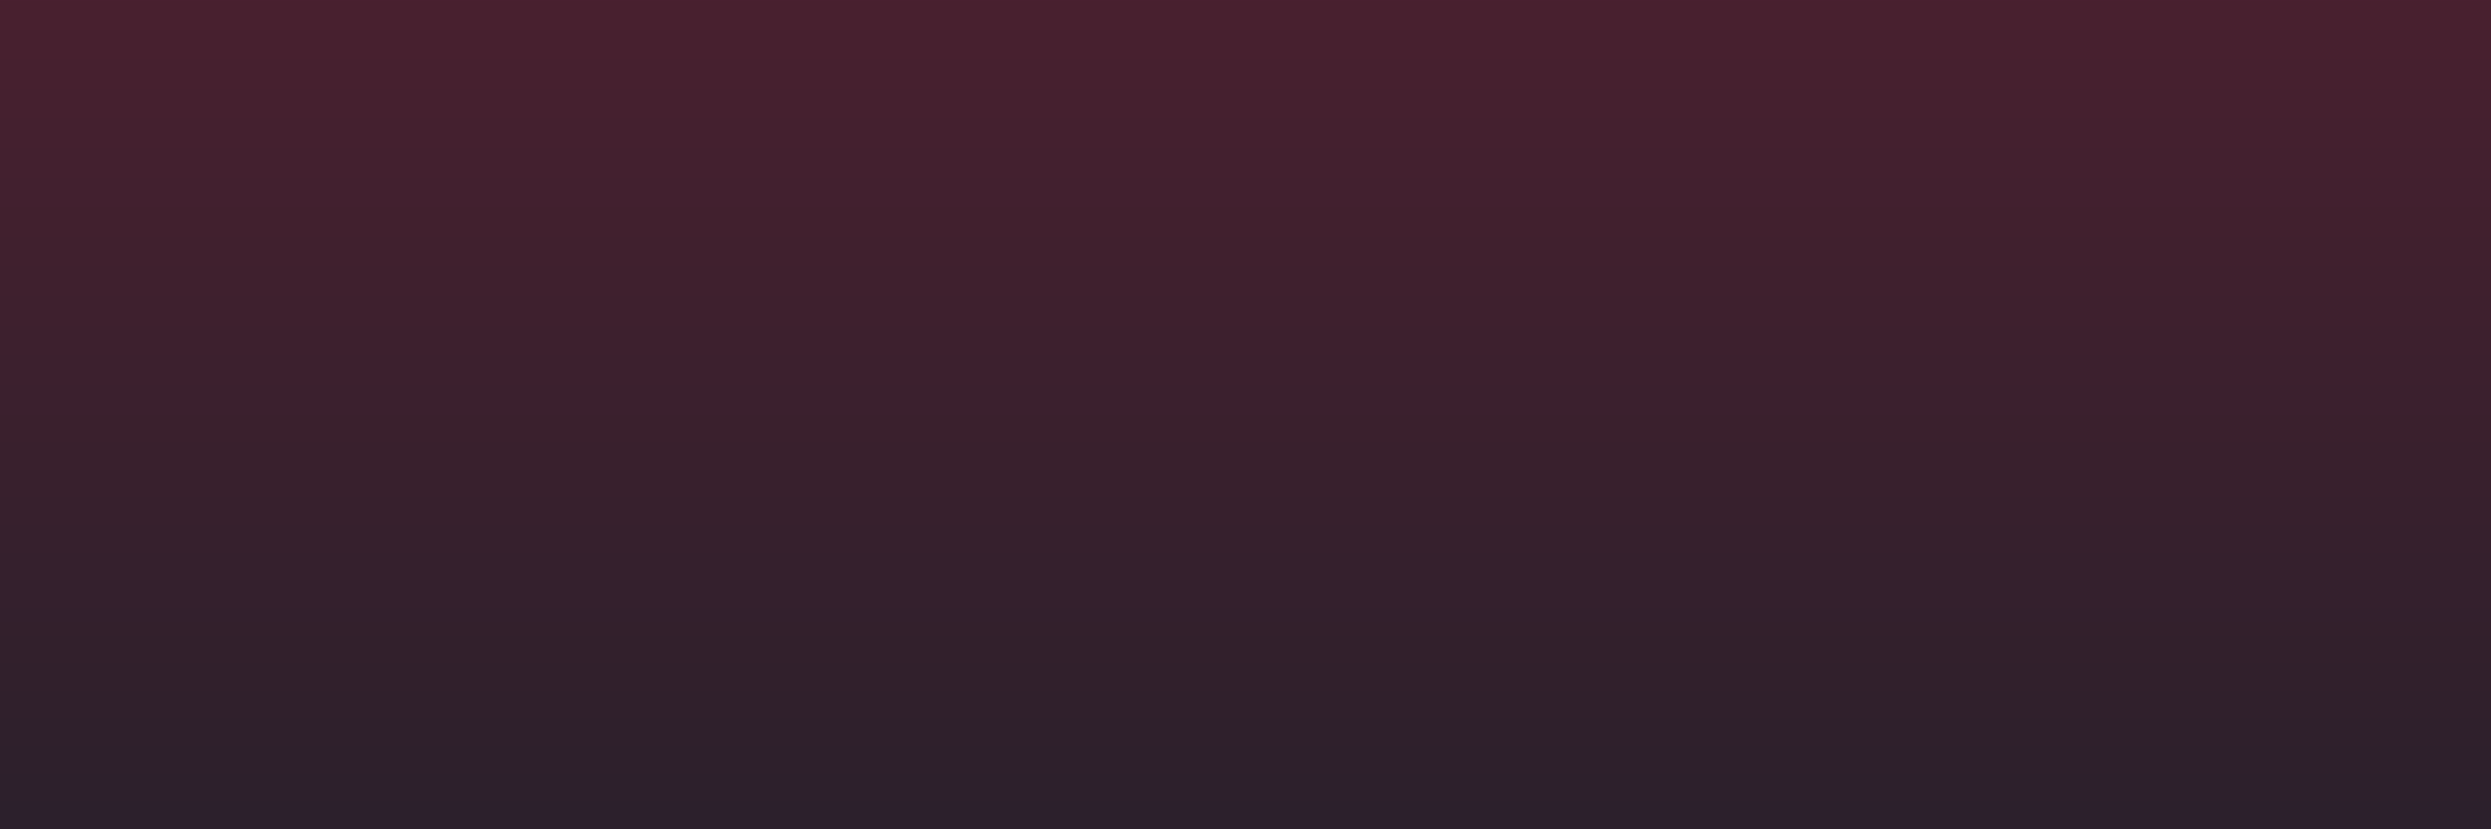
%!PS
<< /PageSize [2491 829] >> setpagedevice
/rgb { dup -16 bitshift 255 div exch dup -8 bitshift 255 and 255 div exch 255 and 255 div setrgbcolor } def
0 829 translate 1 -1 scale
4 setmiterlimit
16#FFFFFF rgb
0 0 2491 829 rectfill
gsave 0 0 moveto 2491 0 lineto 2491 829 lineto 0 829 lineto closepath clip newpath
<< /ShadingType 2 /ColorSpace /DeviceRGB /Coords [1246 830 1246 0] /Extend [true true] /Function << /FunctionType 2 /Domain [0 1] /C0 [0.173 0.125 0.173] /C1 [0.286 0.125 0.188] /N 1 >> >> shfill grestore
showpage
